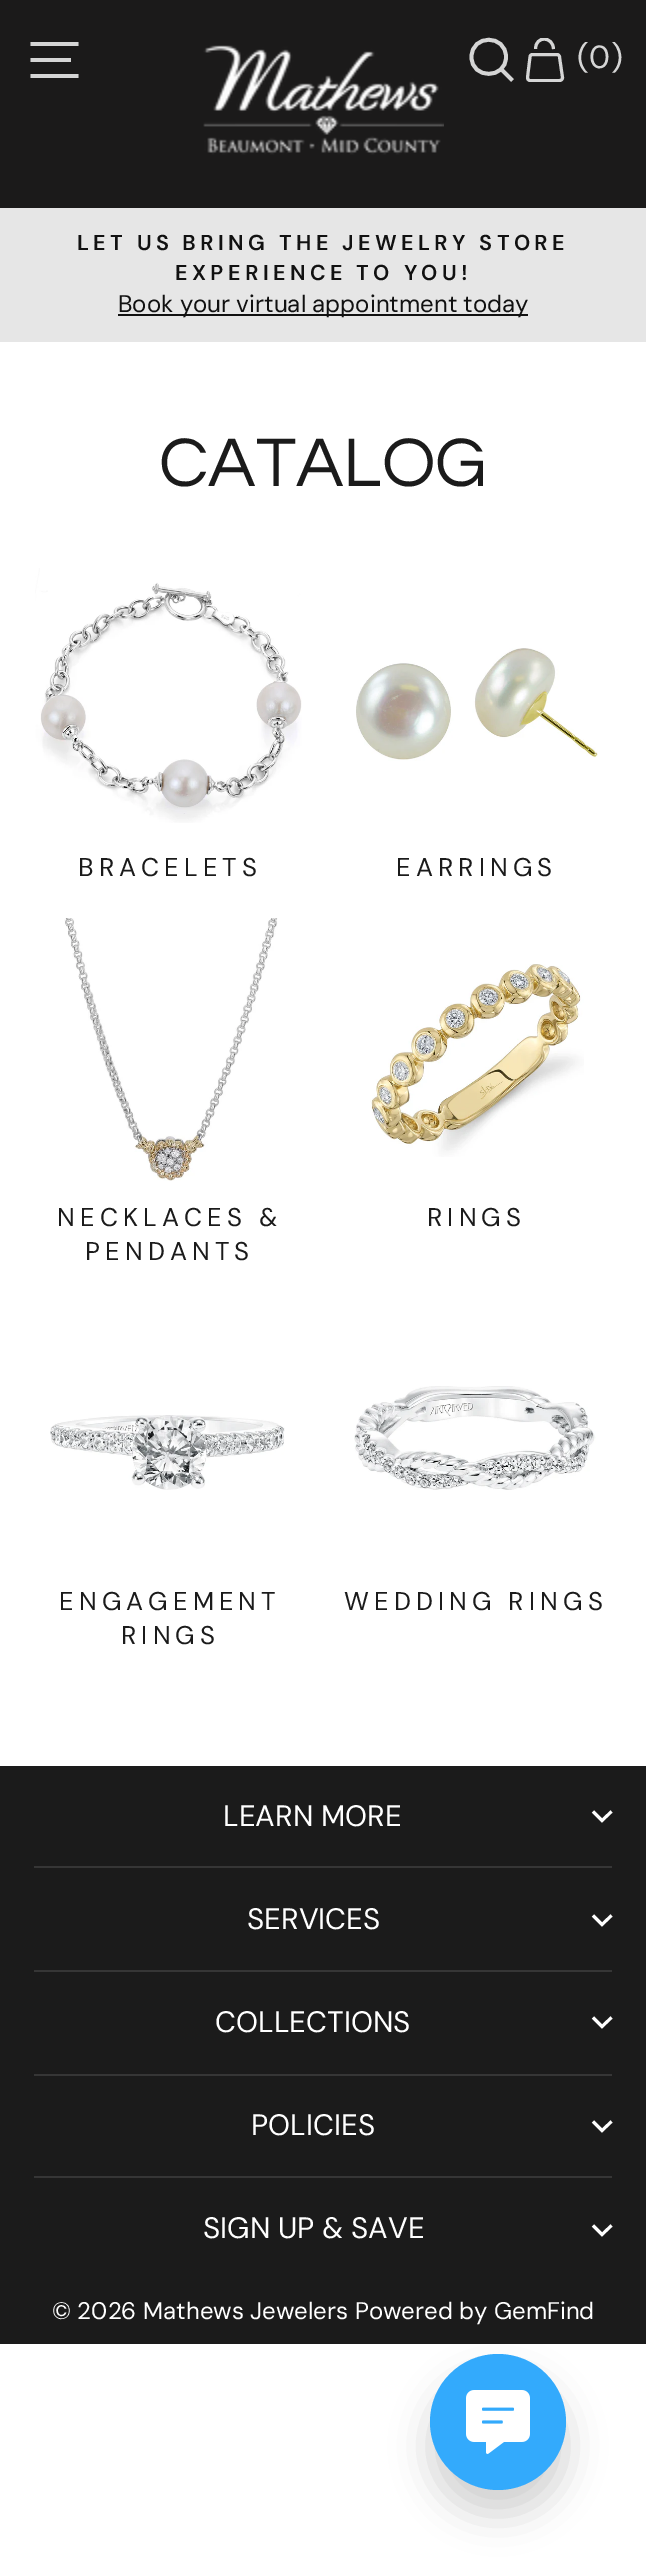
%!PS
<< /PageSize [646 2565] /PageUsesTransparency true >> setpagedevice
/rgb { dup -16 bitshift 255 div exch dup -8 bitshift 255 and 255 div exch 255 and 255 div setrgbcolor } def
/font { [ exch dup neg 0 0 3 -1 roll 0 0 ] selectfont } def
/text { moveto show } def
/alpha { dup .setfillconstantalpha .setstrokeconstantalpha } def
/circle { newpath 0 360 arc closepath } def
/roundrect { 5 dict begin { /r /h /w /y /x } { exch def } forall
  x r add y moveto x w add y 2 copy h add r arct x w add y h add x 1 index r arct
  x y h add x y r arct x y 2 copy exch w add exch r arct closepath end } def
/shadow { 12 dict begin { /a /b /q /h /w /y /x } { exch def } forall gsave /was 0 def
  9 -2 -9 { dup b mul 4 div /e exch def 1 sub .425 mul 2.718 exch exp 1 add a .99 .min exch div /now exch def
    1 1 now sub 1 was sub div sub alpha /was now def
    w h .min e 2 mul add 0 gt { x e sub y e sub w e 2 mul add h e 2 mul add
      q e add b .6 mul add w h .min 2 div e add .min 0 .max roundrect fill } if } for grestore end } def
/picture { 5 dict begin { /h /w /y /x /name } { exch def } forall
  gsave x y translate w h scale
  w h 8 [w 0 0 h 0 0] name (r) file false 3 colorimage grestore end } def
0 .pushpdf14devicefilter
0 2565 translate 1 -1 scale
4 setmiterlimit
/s1 { /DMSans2-Regular 32 font 16#D5D5D5 rgb } def
/s2 { /DMSans-Regular 24 font 16#111111 rgb } def
/s3 { /Questrial-Regular 71.5 font 16#1B1B1B rgb } def
/s4 { /DMSans2-Regular 29.5 font 16#FFFFFF rgb } def
/s5 { /DMSans-Regular 24 font 16#FFFFFF rgb } def
16#FFFFFF rgb
0 0 646 2565 rectfill
16#1B1A1A rgb
0 0 646 208 rectfill
16#D5D5D5 rgb
3.8 setlinewidth
30.5 44 moveto 78.5 44 lineto 30.5 60 moveto 71 60 lineto 30.5 76 moveto 78.5 76 lineto stroke
(pic1.raw) 203 45 241 110 picture
506 57 moveto 506 79.5 471.5 79.5 471.5 57 curveto 471.5 34 506 34 506 57 curveto closepath 512.5 80.5 moveto 501.5 69.5 lineto stroke
gsave
523 38 44 44 rectclip
3 setlinewidth
535.5 49 moveto 535.5 35.5 553 36 553.5 49 curveto 530 80.5 moveto 559.5 80.5 lineto 561.5 80.5 562.5 79 562.5 77.5 curveto 559.5 57 lineto 559.5 55.5 558 54.5 557 54.5 curveto 532.5 54.5 lineto 531 54.5 530 55.5 530 57 curveto 527.5 77.5 lineto 527.5 79 528.5 80.5 530 80.5 curveto closepath stroke
grestore
s1
(\(0) 577 68 text
(\)) 611 68 text
16#E6E6E6 rgb
0 208 646 134 rectfill
/DMSans-SemiBold 21.6 font
16#111111 rgb
77 250 moveto -0.25 0 32 4.3 0 (LET US BRING THE JEWELRY STORE) awidthshow
175 280 moveto 4.3 0 (EXPERIENCE TO YOU!) ashow
118 314 410 2 rectfill
s2
(Book your virtual appointment today) 118 312 text
s3
(CATALOG) 159 486 text
(pic2.raw) 35 568 267 255 picture
/DMSans2-Regular 25.6 font
78 876 moveto 5.1 0 (BRACELETS) ashow
(pic3.raw) 356 648 242 113 picture
396 876 moveto 5.1 0 (EARRINGS) ashow
(pic4.raw) 64 918 214 263 picture
57 1226 moveto 5.1 0 (NECKLACES &) ashow
85 1260 moveto 5.1 0 (PENDANTS) ashow
(pic5.raw) 370 964 214 193 picture
427 1226 moveto 5.1 0 (RINGS) ashow
(pic6.raw) 50 1415 235 75 picture
59 1610 moveto 5.1 0 (ENGAGEMENT) ashow
121 1644 moveto 5.1 0 (RINGS) ashow
(pic7.raw) 354 1386 242 104 picture
344 1610 moveto 5.1 0 (WEDDING RINGS) ashow
0 1766 646 578 rectfill
s4
(LEARN MORE) 223 1826 text
2.9 setlinewidth
593 1811.5 moveto 602 1820.5 lineto 611.5 1811.5 lineto stroke
16#363636 rgb
34 1866 578 2 rectfill
s4
(SERVICES) 247 1929 text
593 1915.5 moveto 602 1924.5 lineto 611.5 1915.5 lineto stroke
16#363636 rgb
34 1970 578 2 rectfill
s4
(COLLECTIONS) 215 2032 text
593 2017.5 moveto 602 2026.5 lineto 611.5 2017.5 lineto stroke
16#363636 rgb
34 2074 578 2 rectfill
s4
(POLICIES) 251 2135 text
593 2121.5 moveto 602 2130.5 lineto 611.5 2121.5 lineto stroke
16#363636 rgb
34 2176 578 2 rectfill
16#FFFFFF rgb
203 2238 moveto -0.5 0 32 (SIGN UP & SAVE) widthshow
593 2225.5 moveto 602 2234.5 lineto 611.5 2225.5 lineto stroke
s5
(© 2026 Mathews Jewelers Powered by GemFind) 52 2319 text
16#000000 rgb
430 2378 136 136 68 19 0.18 shadow
16#33AAFC rgb
498 2422 68 circle fill
(pic8.raw) 466 2390 64 64 picture
.poppdf14devicefilter showpage
